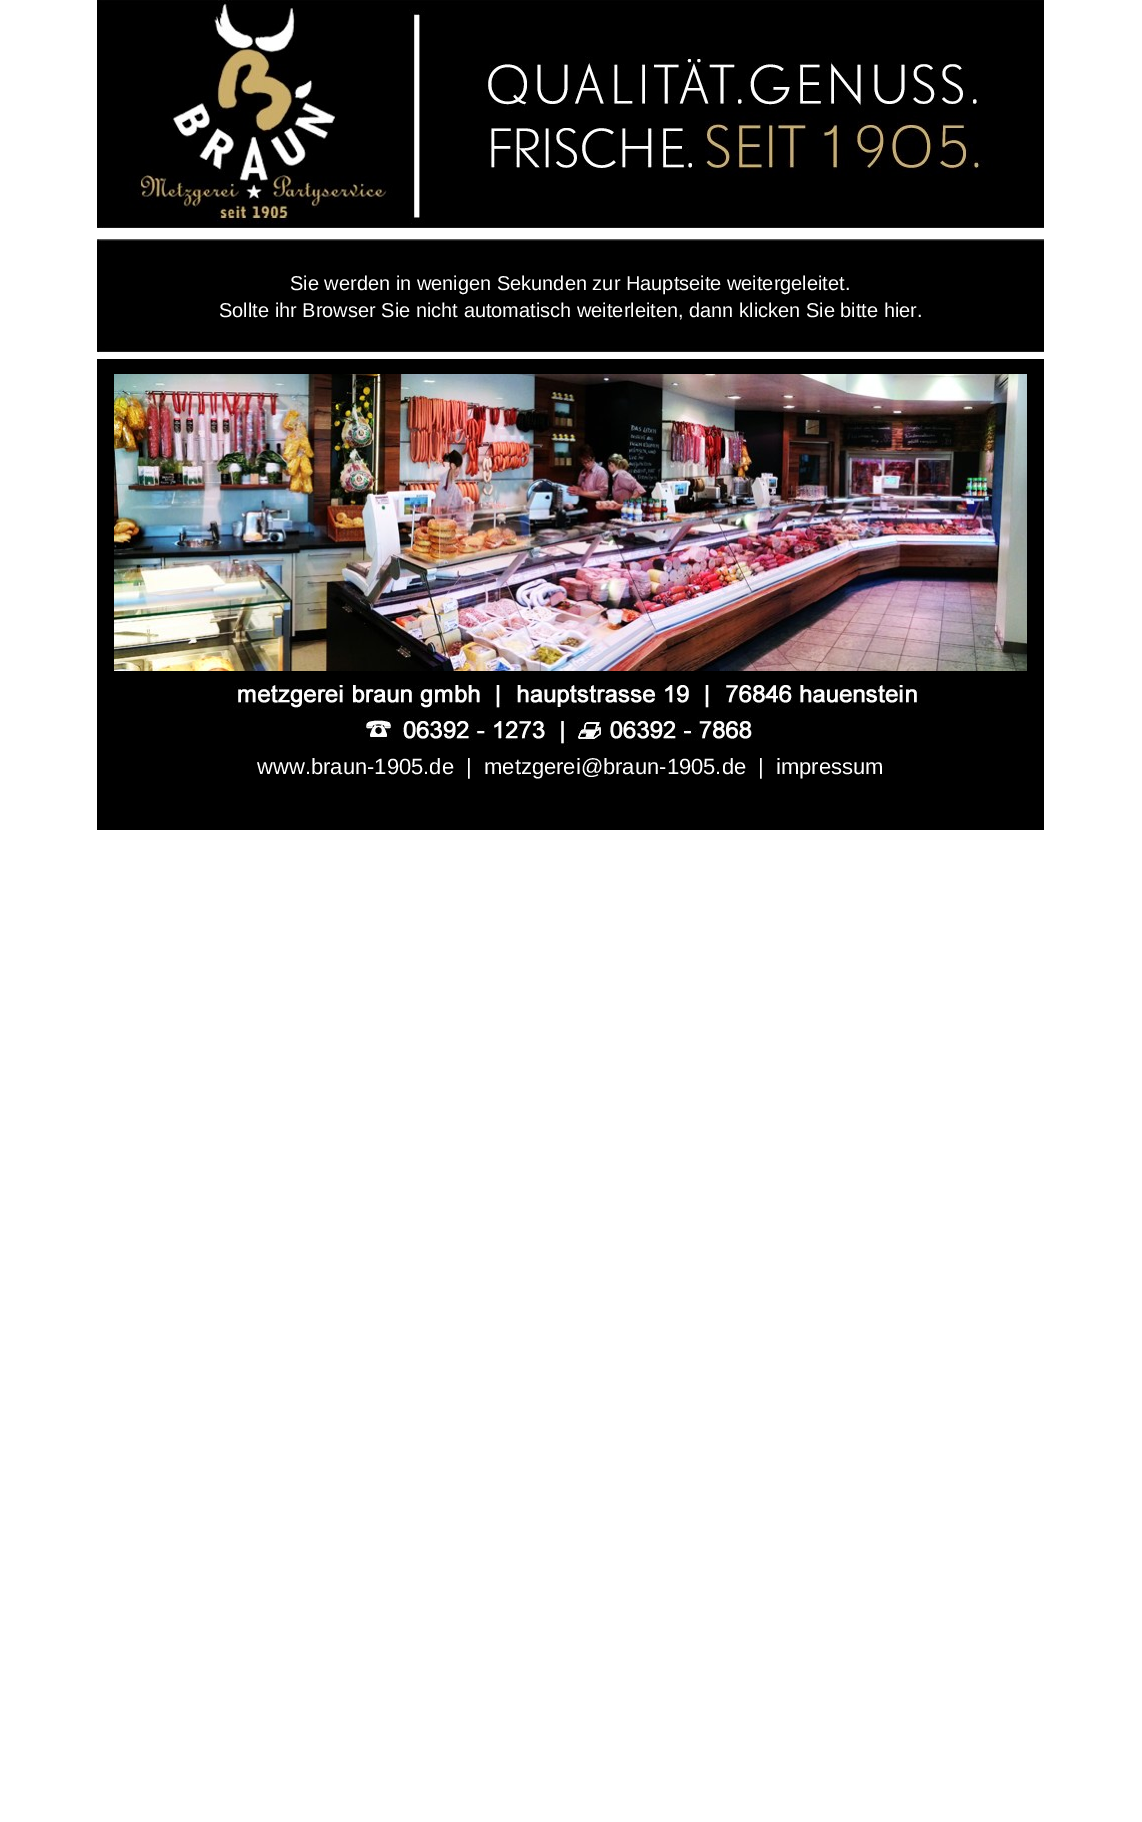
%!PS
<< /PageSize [1142 1822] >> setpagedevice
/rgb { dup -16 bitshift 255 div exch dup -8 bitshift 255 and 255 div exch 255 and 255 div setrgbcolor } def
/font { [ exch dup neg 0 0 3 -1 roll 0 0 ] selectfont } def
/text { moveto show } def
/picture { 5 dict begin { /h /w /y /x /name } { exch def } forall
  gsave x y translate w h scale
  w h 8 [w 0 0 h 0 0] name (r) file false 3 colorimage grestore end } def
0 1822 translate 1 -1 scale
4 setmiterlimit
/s1 { /LiberationSans-Regular 20 font 16#FFFFFF rgb } def
/s2 { /LiberationSans-Regular 22 font 16#FFFFFF rgb } def
16#FFFFFF rgb
0 0 1142 1822 rectfill
(pic1.raw) 97 0 947 228 picture
(pic2.raw) 97 239 947 408 picture
s1
(Sie werden in wenigen Sekunden zur Hauptseite weitergeleitet.) 290 290 text
(Sollte ihr Browser Sie nicht automatisch weiterleiten, dann klicken Sie bitte hier.) 219 317 text
(pic4.raw) 97 647 947 183 picture
(pic3.raw) 114 374 913 297 picture
s2
(www.braun-1905.de) 257 774 text
(|) 466 774 text
(metzgerei@braun-1905.de) 484 774 text
(|) 758 774 text
(impressum) 776 774 text
showpage
